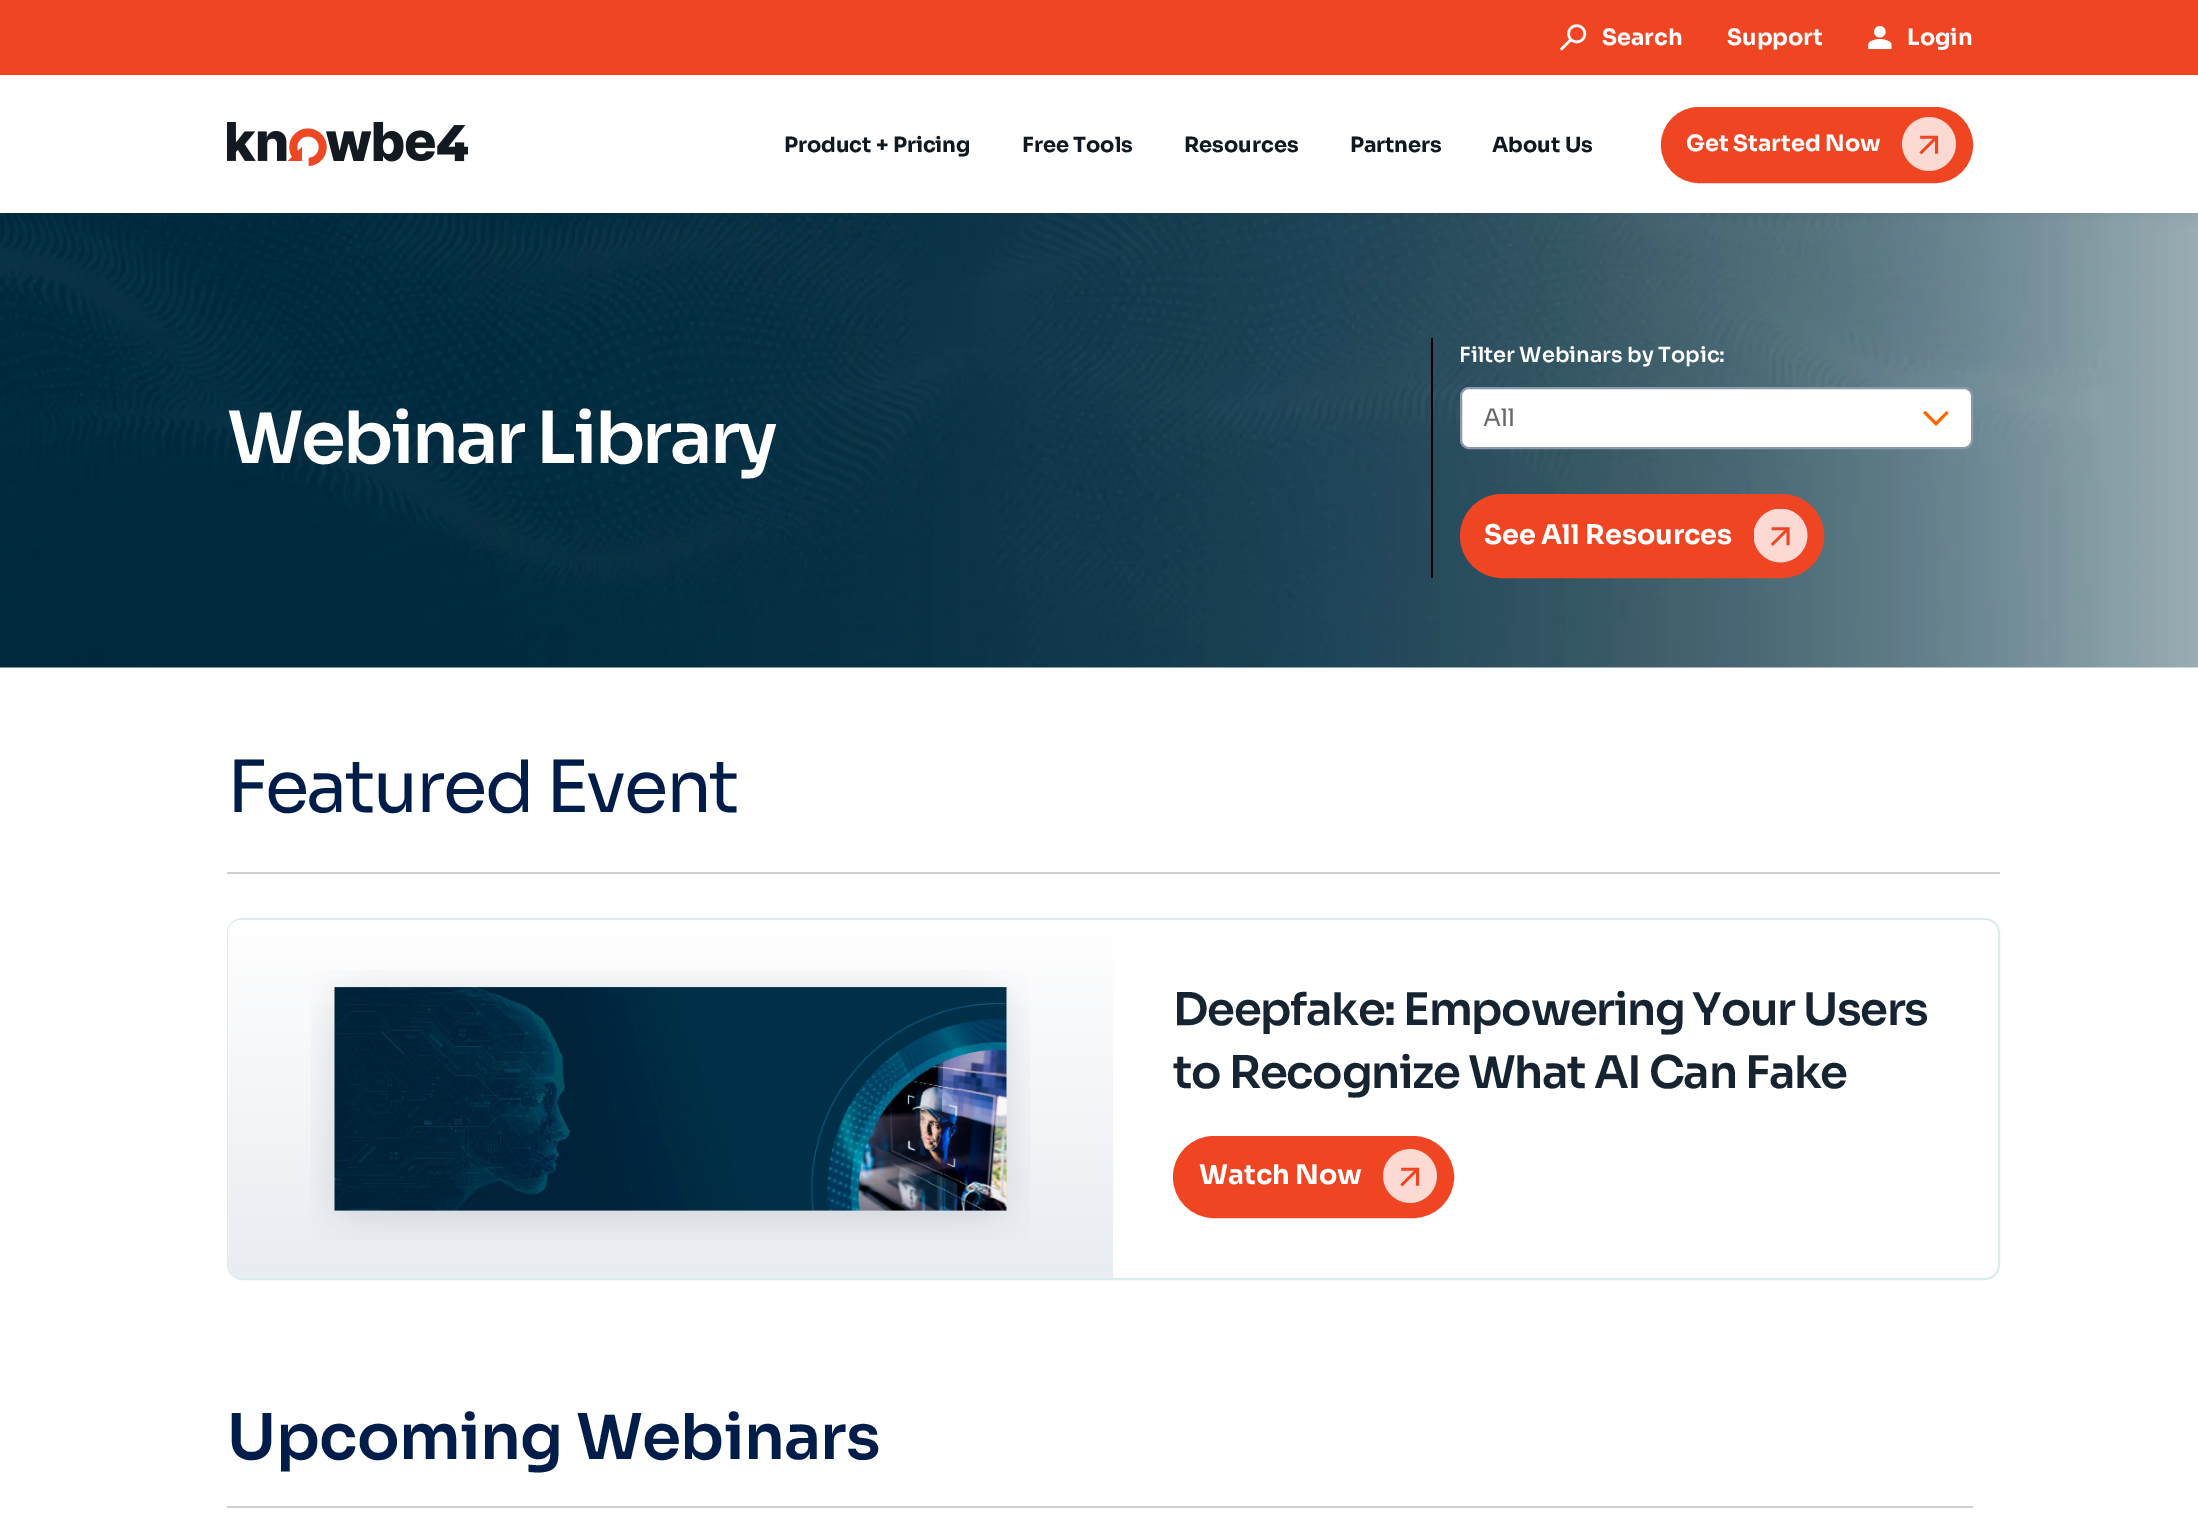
%!PS
<< /PageSize [2198 1532] /PageUsesTransparency true >> setpagedevice
/rgb { dup -16 bitshift 255 div exch dup -8 bitshift 255 and 255 div exch 255 and 255 div setrgbcolor } def
/font { [ exch dup neg 0 0 3 -1 roll 0 0 ] selectfont } def
/text { moveto show } def
/alpha { dup .setfillconstantalpha .setstrokeconstantalpha } def
/roundrect { 5 dict begin { /r /h /w /y /x } { exch def } forall
  x r add y moveto x w add y 2 copy h add r arct x w add y h add x 1 index r arct
  x y h add x y r arct x y 2 copy exch w add exch r arct closepath end } def
/shadow { 12 dict begin { /a /b /q /h /w /y /x } { exch def } forall gsave /was 0 def
  9 -2 -9 { dup b mul 4 div /e exch def 1 sub .425 mul 2.718 exch exp 1 add a .99 .min exch div /now exch def
    1 1 now sub 1 was sub div sub alpha /was now def
    w h .min e 2 mul add 0 gt { x e sub y e sub w e 2 mul add h e 2 mul add
      q e add b .6 mul add w h .min 2 div e add .min 0 .max roundrect fill } if } for grestore end } def
/picture { 5 dict begin { /h /w /y /x /name } { exch def } forall
  gsave x y translate w h scale
  w h 8 [w 0 0 h 0 0] name (r) file false 3 colorimage grestore end } def
0 .pushpdf14devicefilter
0 1532 translate 1 -1 scale
4 setmiterlimit
/s1 { /Sora-Bold 22.5 font 16#FFFFFF rgb } def
/s2 { /Sora-Bold 21 font 16#101820 rgb } def
/s3 { /Sora-SemiBold 21 font 16#FFFFFF rgb } def
/s4 { /Sora-Regular 24 font 16#676767 rgb } def
/s5 { /Sora-Bold 27 font 16#FFFFFF rgb } def
16#FFFFFF rgb
0 0 2198 1532 rectfill
(pic5.raw) 0 213 2198 455 picture
16#162432 rgb
0 0 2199 213 0 7.5 0.1 shadow
16#FFFFFF rgb
0 75 2198 138 rectfill
16#EF4523 rgb
0 0 2198 75 rectfill
(pic1.raw) 1559 24 28 27 picture
s1
(Search) 1602 45 text
(Support) 1727 45 text
(pic2.raw) 1868 26 24 24 picture
(Login) 1907 45 text
(pic3.raw) 227 122 241 44 picture
s2
(Product + Pricing) 784 152 text
(Free Tools) 1022 152 text
(Resources) 1184 152 text
(Partners) 1350 152 text
(About Us) 1492 152 text
16#EF4523 rgb
1662 108 310 74 37 roundrect gsave fill grestore
2 setlinewidth
stroke
s1
(Get Started Now) 1686 151 text
(pic4.raw) 1902 117 54 54 picture
/Sora-SemiBold 72 font
227 463 moveto -2.5 0 (Webinar Library) ashow
16#000000 rgb
1431 338 2 240 rectfill
s3
(Filter Webinars by Topic:) 1459 362 text
1461 388 511 60 8 roundrect gsave fill grestore
16#8C99AC rgb
stroke
s4
(All) 1483 426 text
16#FF6600 rgb
1948.5 413 moveto 1946.5 411 lineto 1936 421.5 lineto 1925.5 411 lineto 1923 413 lineto 1936 426 lineto closepath fill
16#EF4523 rgb
1461 495 362 82 41 roundrect gsave fill grestore
stroke
s5
(See All Resources) 1484 544 text
(pic6.raw) 1754 509 54 54 picture
/Sora-Regular 72 font
16#001C48 rgb
227 812 moveto -2.5 0 (Featured Event) ashow
16#D0CFCD rgb
227 872 1773 2 rectfill
16#DAECED rgb
228 919 1771 360 14 roundrect stroke
gsave 243 920 moveto 1113 920 lineto 1113 1278 lineto 243 1278 lineto 234.5 1278 228 1271.5 228 1263 curveto 228 935 lineto 228 926.5 234.5 920 243 920 curveto closepath clip newpath
<< /ShadingType 2 /ColorSpace /DeviceRGB /Coords [671 1278 671 920] /Extend [true true] /Function << /FunctionType 2 /Domain [0 1] /C0 [0.914 0.925 0.945] /C1 [1 1 1] /N 1 >> >> shfill grestore
(pic7.raw) 311 970 719 270 picture
16#FFFFFF rgb
1113 920 moveto 1983 920 lineto 1991.5 920 1998 926.5 1998 935 curveto 1998 1263 lineto 1998 1271.5 1991.5 1278 1983 1278 curveto 1113 1278 lineto closepath fill
/Sora-SemiBold 45 font
16#162432 rgb
1173 1025 moveto -1.35 0 (Deepfake: Empowering Your Users) ashow
1173 1088 moveto -1.35 0 (to Recognize What AI Can Fake) ashow
16#EF4523 rgb
1174 1137 279 80 40 roundrect gsave fill grestore
stroke
s5
(Watch Now) 1199 1184 text
(pic4.raw) 1383 1149 54 54 picture
16#D0CFCD rgb
227 1506 1746 2 rectfill
/Sora-SemiBold 63 font
16#001C48 rgb
227 1459 moveto -0.6 0 (Upcoming Webinars) ashow
.poppdf14devicefilter showpage
